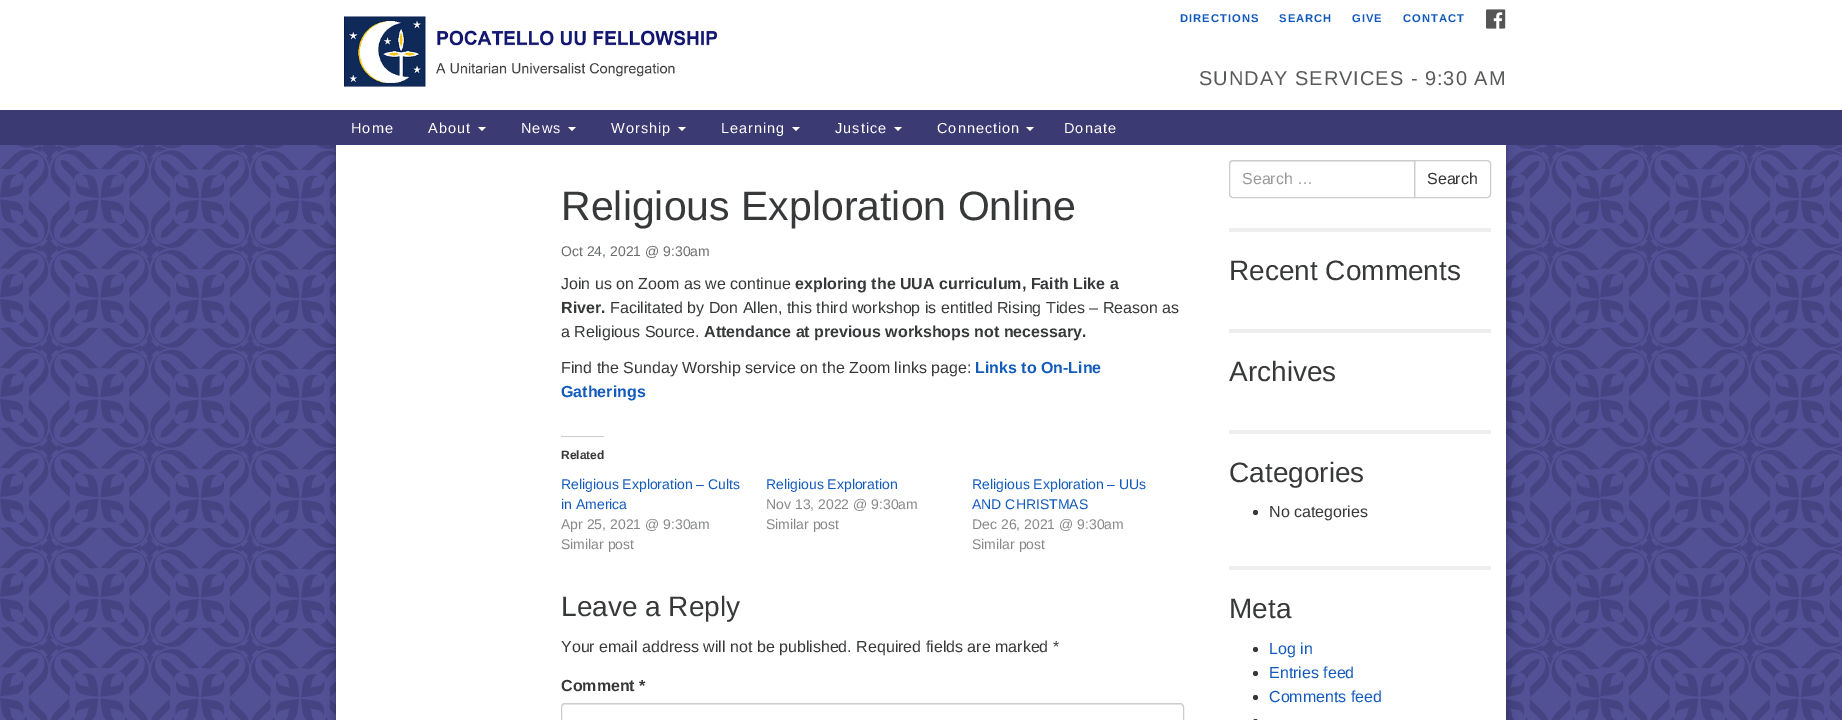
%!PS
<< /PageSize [1842 720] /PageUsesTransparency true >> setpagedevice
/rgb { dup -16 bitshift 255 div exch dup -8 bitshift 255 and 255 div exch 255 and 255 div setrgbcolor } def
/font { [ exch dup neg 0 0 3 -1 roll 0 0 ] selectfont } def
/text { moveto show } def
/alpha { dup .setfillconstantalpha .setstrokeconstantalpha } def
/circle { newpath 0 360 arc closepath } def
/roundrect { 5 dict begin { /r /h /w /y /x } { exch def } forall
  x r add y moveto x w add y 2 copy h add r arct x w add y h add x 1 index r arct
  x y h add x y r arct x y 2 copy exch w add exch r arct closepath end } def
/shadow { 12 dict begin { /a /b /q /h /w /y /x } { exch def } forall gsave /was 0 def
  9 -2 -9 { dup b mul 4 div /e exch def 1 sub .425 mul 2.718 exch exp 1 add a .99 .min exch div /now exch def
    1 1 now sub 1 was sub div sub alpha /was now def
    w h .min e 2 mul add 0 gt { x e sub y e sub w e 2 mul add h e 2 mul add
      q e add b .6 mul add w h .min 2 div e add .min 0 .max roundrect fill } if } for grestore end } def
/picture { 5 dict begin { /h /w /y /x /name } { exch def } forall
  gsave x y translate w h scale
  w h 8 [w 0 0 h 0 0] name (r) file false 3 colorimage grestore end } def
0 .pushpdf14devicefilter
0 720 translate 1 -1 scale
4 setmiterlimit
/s1 { /LiberationSans-Regular 41 font 16#373839 rgb } def
/s2 { /LiberationSans-Regular 14 font 16#6C6D6F rgb } def
/s3 { /LiberationSans-Regular 16 font 16#373839 rgb } def
/s4 { /LiberationSans-Bold 16 font 16#373839 rgb } def
/s5 { /LiberationSans-Bold 16 font 16#125ABB rgb } def
/s6 { /LiberationSans-Bold 12 font 16#373839 rgb } def
/s7 { /LiberationSans-Regular 14 font 16#125ABB rgb } def
/s8 { /LiberationSans-Regular 14 font 16#878888 rgb } def
/s9 { /LiberationSans-Regular 28 font 16#373839 rgb } def
/s10 { /LiberationSans-Regular 16 font 16#999999 rgb } def
/s11 { /LiberationSans-Regular 16 font 16#333333 rgb } def
/s12 { /LiberationSans-Regular 16 font 16#125ABB rgb } def
16#FFFFFF rgb
0 0 1842 720 rectfill
(pic1.raw) 0 145 1842 575 picture
(pic2.raw) 344 16 373 71 picture
/LiberationSans-Bold 11.25 font
16#125ABB rgb
1180 22 moveto 1 0 (DIRECTIONS) ashow
1279 22 moveto 1 0 (SEARCH) ashow
1352 22 moveto 1 0 (GIVE) ashow
1403 22 moveto 1 0 (CONTACT) ashow
(pic3.raw) 1486 9 20 20 picture
/LiberationSans-Regular 20 font
16#58595B rgb
1199 85 moveto 1 0 (SUNDAY SERVICES - 9:30 AM) ashow
16#000000 rgb
336 145 1170 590 0 5 0.3 shadow
16#3C3A73 rgb
0 110 1842 35 rectfill
/LiberationSans-Regular 14.5 font
16#FFFFFF rgb
351 133 moveto 1 0 (Home) ashow
428 133 moveto 1 0 (About) ashow
478 127 moveto 486 127 lineto 482 131 lineto closepath fill
521 133 moveto 1 0 (News) ashow
568 127 moveto 576 127 lineto 572 131 lineto closepath fill
611 133 moveto 1 0 (Worship) ashow
678 127 moveto 686 127 lineto 682 131 lineto closepath fill
721 133 moveto 1 0 (Learning) ashow
792 127 moveto 800 127 lineto 796 131 lineto closepath fill
835 133 moveto 1 0 (Justice) ashow
894 127 moveto 902 127 lineto 898 131 lineto closepath fill
937 133 moveto 1 0 (Connection) ashow
1026 127 moveto 1034 127 lineto 1030 131 lineto closepath fill
1064 133 moveto 1 0 (Donate) ashow
336 145 1170 575 rectfill
s1
(Religious Exploration Online) 561 220 text
s2
(Oct 24, 2021 @ 9:30am) 561 256 text
s3
(Join us on Zoom as we continue) 561 289 text
s4
(exploring the UUA curriculum, Faith Like a) 795 289 text
(River.) 561 313 text
s3
(Facilitated by Don Allen, this third workshop is entitled Rising Tides – Reason as) 610 313 text
(a Religious Source.) 561 337 text
s4
(Attendance at previous workshops not necessary.) 704 337 text
s3
(Find the Sunday Worship service on the Zoom links page:) 561 373 text
s5
(Links to On-Line) 975 373 text
(Gatherings) 561 397 text
16#CCCCCC rgb
561 436 43 1 rectfill
s6
(Related) 561 459 text
s7
(Religious Exploration – Cults) 561 489 text
(in America) 561 509 text
s8
(Apr 25, 2021 @ 9:30am) 561 529 text
(Similar post) 561 549 text
s7
(Religious Exploration) 766 489 text
s8
(Nov 13, 2022 @ 9:30am) 766 509 text
(Similar post) 766 529 text
s7
(Religious Exploration – UUs) 972 489 text
(AND CHRISTMAS) 972 509 text
s8
(Dec 26, 2021 @ 9:30am) 972 529 text
(Similar post) 972 549 text
s9
(Leave a Reply) 561 616 text
s3
(Your email address will not be published. Required fields are marked *) 561 652 text
s4
(Comment *) 561 691 text
16#ECECEC rgb
565 705 moveto 1180 705 lineto 1182 705 1183 706 1183 708 curveto 1183 707 lineto 1183 705 1182 704 1180 704 curveto 565 704 lineto 563 704 562 705 562 707 curveto 562 708 lineto 562 706 563 705 565 705 curveto closepath fill
16#CCCCCC rgb
561.5 703.5 622 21 3.5 roundrect stroke
1414.5 160.5 moveto 1487 160.5 lineto 1489 160.5 1490.5 162 1490.5 164 curveto 1490.5 194 lineto 1490.5 196 1489 197.5 1487 197.5 curveto 1414.5 197.5 lineto closepath stroke
16#FFFFFF rgb
1233 160 moveto 1415 160 lineto 1415 198 lineto 1233 198 lineto 1231 198 1229 196 1229 194 curveto 1229 164 lineto 1229 162 1231 160 1233 160 curveto closepath fill
16#ECECEC rgb
1233 162 moveto 1414 162 lineto 1414 161 lineto 1232 161 lineto 1230 162 1230 163 1230 165 curveto 1230 163 1231 162 1233 162 curveto closepath fill
16#CCCCCC rgb
1233 160.5 moveto 1414.5 160.5 lineto 1414.5 197.5 lineto 1233 197.5 lineto 1231 197.5 1229.5 196 1229.5 194 curveto 1229.5 164 lineto 1229.5 162 1231 160.5 1233 160.5 curveto closepath stroke
s10
(Search …) 1242 184 text
s11
(Search) 1427 184 text
16#EEEEEE rgb
1229 228 262 4 rectfill
s9
(Recent Comments) 1229 280 text
16#EEEEEE rgb
1229 329 262 4 rectfill
s9
(Archives) 1229 381 text
16#EEEEEE rgb
1229 430 262 4 rectfill
s9
(Categories) 1229 482 text
1255.5 512.5 2.5 circle fill
s3
(No categories) 1269 517 text
16#EEEEEE rgb
1229 566 262 4 rectfill
s9
(Meta) 1229 618 text
1255.5 649.5 2.5 circle fill
s12
(Log in) 1269 654 text
16#373839 rgb
1255.5 673.5 2.5 circle fill
s12
(Entries feed) 1269 678 text
16#373839 rgb
1255.5 697.5 2.5 circle fill
s12
(Comments feed) 1269 702 text
16#373839 rgb
1253 719 5 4 2.5 roundrect fill
.poppdf14devicefilter showpage
